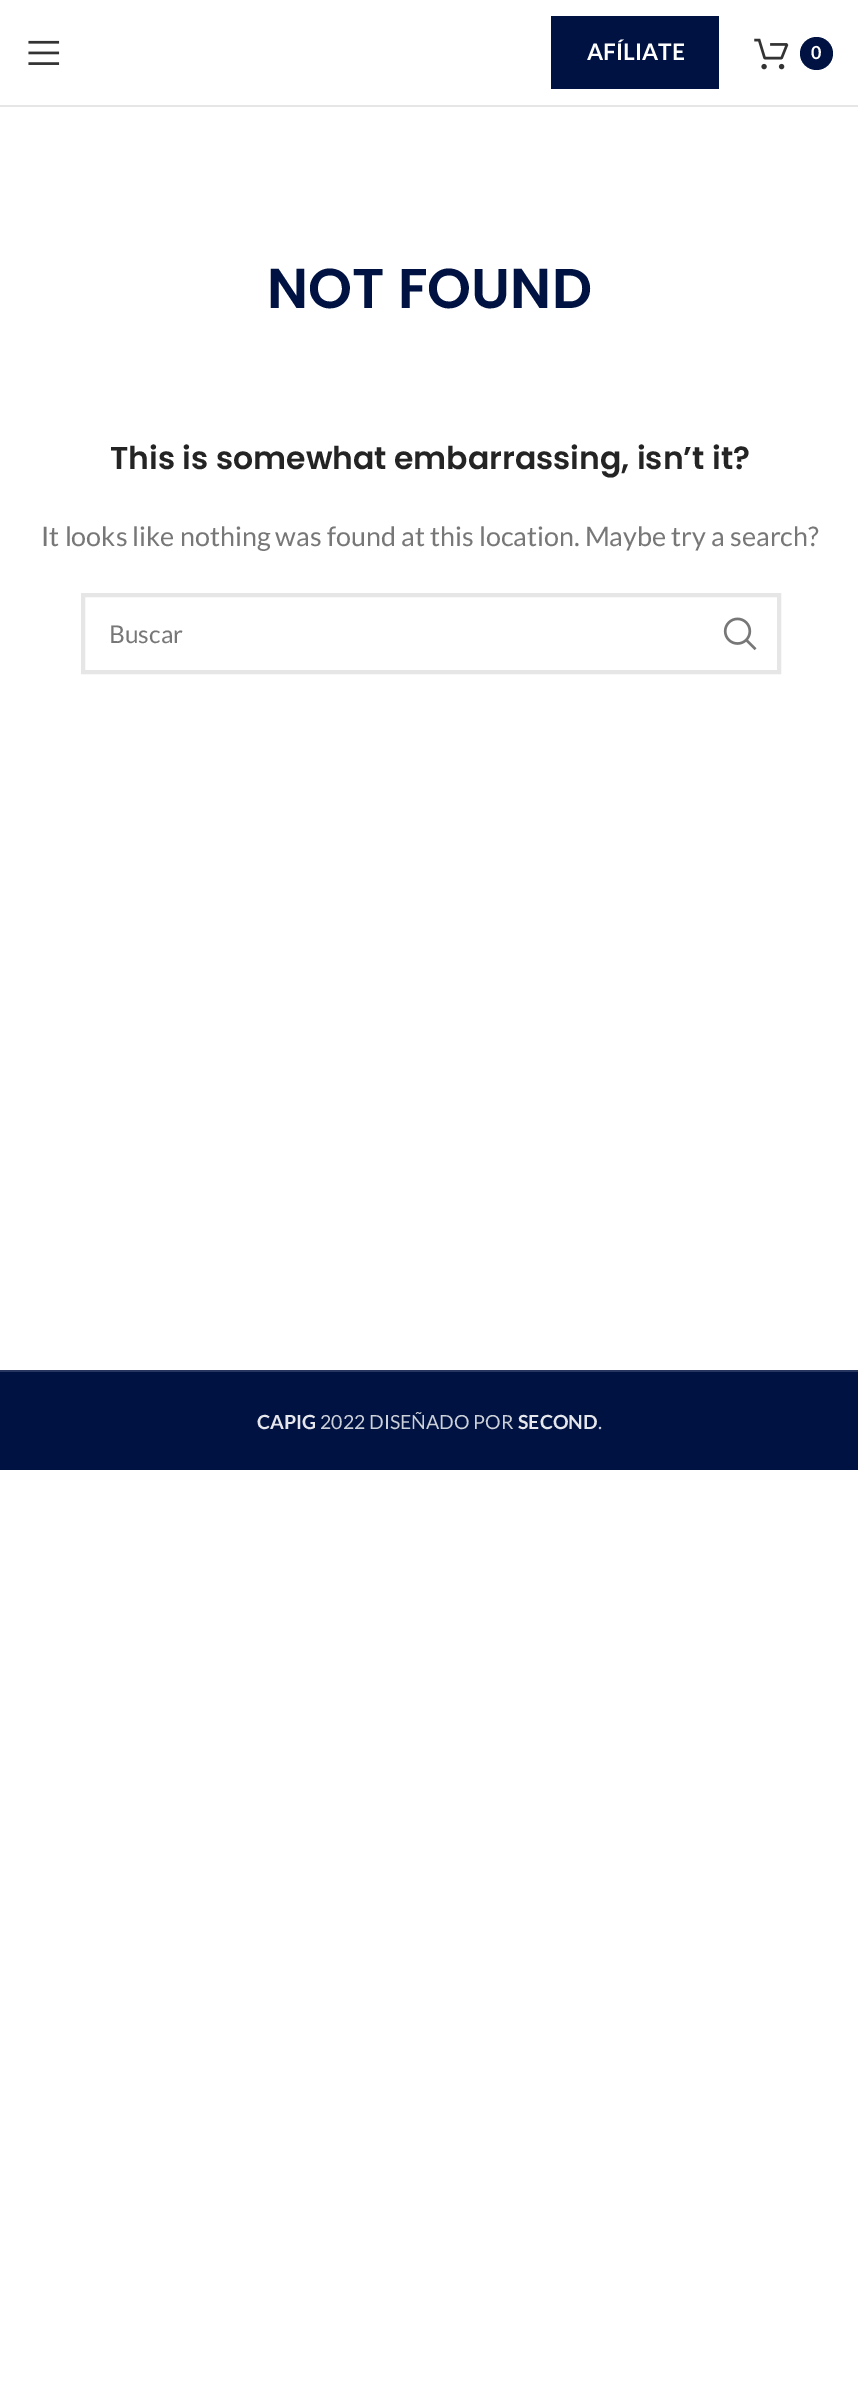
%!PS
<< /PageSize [858 2384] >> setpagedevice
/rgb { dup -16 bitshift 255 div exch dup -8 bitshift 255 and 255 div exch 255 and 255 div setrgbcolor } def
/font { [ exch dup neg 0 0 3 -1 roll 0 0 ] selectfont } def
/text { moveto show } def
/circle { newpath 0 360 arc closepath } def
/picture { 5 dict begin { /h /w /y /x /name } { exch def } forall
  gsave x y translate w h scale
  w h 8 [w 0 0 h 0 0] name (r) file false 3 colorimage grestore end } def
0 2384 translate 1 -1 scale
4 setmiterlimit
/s1 { /Lato-Bold 22.75 font 16#FFFFFF rgb } def
/s2 { /Lato-Bold 18 font 16#FFFFFF rgb } def
/s3 { /Poppins-SemiBold 56 font 16#001242 rgb } def
/s4 { /Poppins-SemiBold 31.5 font 16#242424 rgb } def
/s5 { /Lato-Regular 26.95 font 16#777777 rgb } def
/s6 { /Lato-Regular 24.5 font 16#777777 rgb } def
/s7 { /Lato-Bold 19.5 font 16#E6E7EC rgb } def
/s8 { /Lato-Regular 19.5 font 16#CCD0D9 rgb } def
16#FFFFFF rgb
0 0 858 2384 rectfill
16#E6E6E6 rgb
0 105 858 2 rectfill
(pic1.raw) 28 40 32 25 picture
16#001242 rgb
551 16 168 73 rectfill
s1
(AFÍLIATE) 587 60 text
(pic2.raw) 754 38 35 32 picture
16#001242 rgb
816.5 53.5 16.5 circle fill
s2
(0) 811 59 text
s3
(NOT FOUND) 267 308 text
s4
(This is somewhat embarrassing, isn’t it?) 110 469 text
s5
(It looks like nothing was found at this location. Maybe try a search?) 41 546 text
16#E6E6E6 rgb
4 setlinewidth
83 595 696 77 rectstroke
s6
(Buscar) 109 643 text
(pic3.raw) 723 617 34 34 picture
16#001242 rgb
0 1372 858 98 rectfill
16#26365E rgb
0 1370 858 2 rectfill
s7
(CAPIG) 257 1429 text
s8
(2022 DISEÑADO POR) 320 1429 text
s7
(SECOND) 518 1429 text
s8
(.) 598 1429 text
showpage
